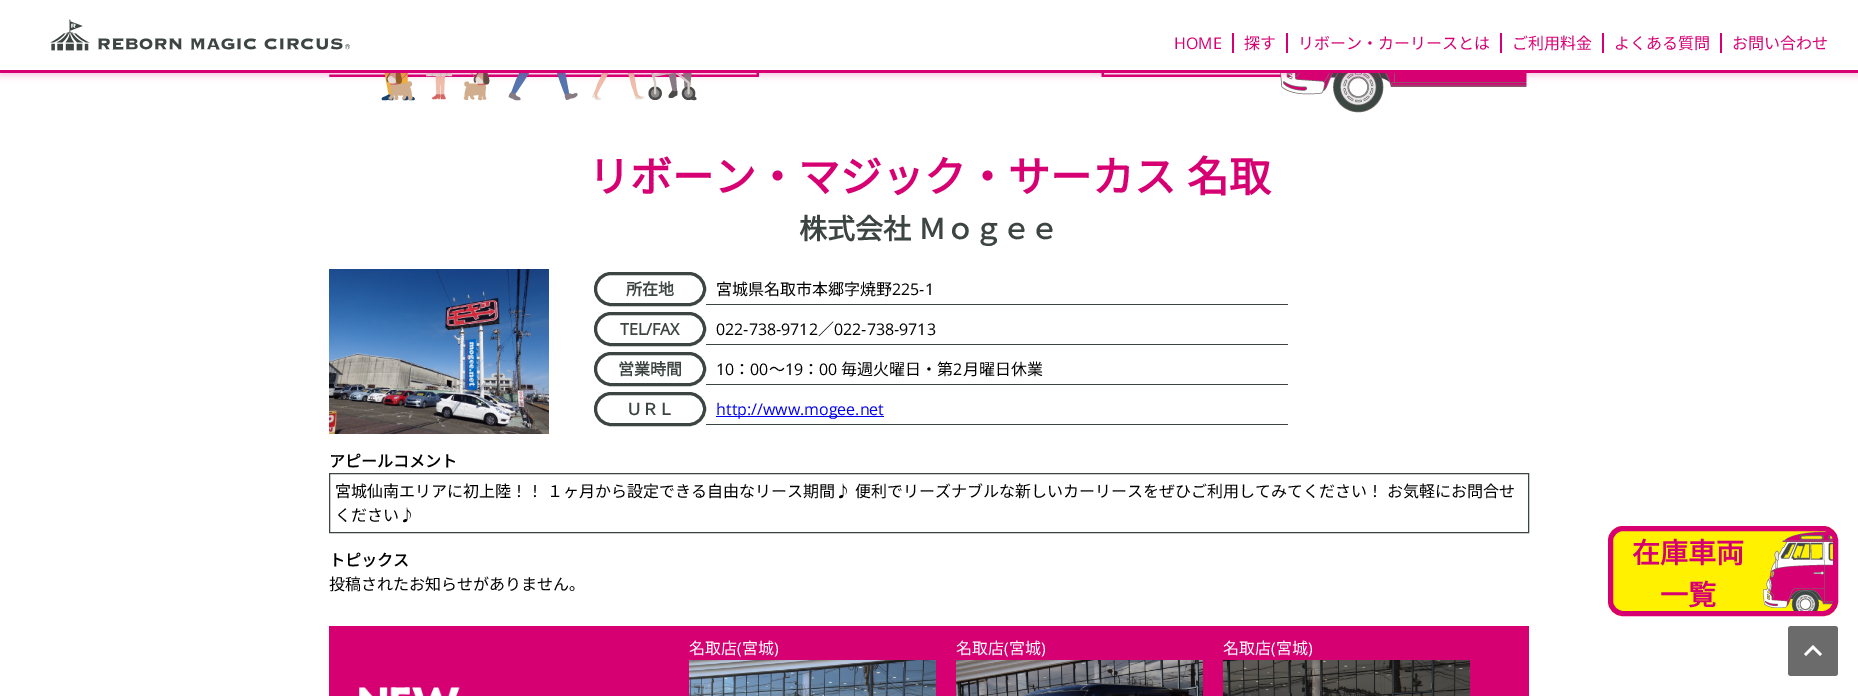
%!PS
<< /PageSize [1858 696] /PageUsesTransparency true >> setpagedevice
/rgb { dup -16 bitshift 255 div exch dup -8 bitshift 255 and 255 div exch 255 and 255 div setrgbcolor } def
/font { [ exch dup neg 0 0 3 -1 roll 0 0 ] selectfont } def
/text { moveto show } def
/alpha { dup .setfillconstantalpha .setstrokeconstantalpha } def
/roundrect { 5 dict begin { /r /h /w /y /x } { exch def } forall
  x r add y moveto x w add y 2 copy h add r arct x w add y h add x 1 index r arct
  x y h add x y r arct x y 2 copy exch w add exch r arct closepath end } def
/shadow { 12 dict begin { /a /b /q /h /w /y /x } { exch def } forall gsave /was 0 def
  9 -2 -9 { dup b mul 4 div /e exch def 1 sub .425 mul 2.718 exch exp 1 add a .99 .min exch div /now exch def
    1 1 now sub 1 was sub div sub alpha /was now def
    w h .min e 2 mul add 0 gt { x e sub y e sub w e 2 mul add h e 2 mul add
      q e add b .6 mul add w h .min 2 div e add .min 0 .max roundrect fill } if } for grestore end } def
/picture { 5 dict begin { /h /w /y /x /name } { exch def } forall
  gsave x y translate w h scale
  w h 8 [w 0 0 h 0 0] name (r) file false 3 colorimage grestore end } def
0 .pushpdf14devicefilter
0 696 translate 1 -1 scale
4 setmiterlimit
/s1 { /OpenSans-Regular 16 font 16#D60073 rgb } def
/s2 { /NotoSansJP-Thin 16 font 16#D60073 rgb } def
/s3 { /NotoSansJP-Bold 16 font 16#3C4542 rgb } def
/s4 { /NotoSansJP-Thin 16 font 16#000000 rgb } def
/s5 { /OpenSans-Regular 16 font 16#000000 rgb } def
/s6 { /OpenSans-Bold 16 font 16#3C4542 rgb } def
/s7 { /OpenSans-Regular 16 font 16#0000EE rgb } def
/s8 { /NotoSansJP-Bold 16 font 16#000000 rgb } def
/s9 { /NotoSansJP-Thin 16 font 16#FFFFFF rgb } def
/s10 { /OpenSans-Regular 16 font 16#FFFFFF rgb } def
/s11 { /NotoSansJP-Bold 28 font 16#D60073 rgb } def
16#FFFFFF rgb
0 0 1858 696 rectfill
(pic2.raw) 329 73 1198 40 picture
16#D60073 rgb
0 3 1858 73 0 3 0.2 shadow
0 70 1858 3 rectfill
16#FFFFFF rgb
0 0 1858 70 rectfill
(pic1.raw) 50 19 300 32 picture
16#D60073 rgb
1232 33 2 20 rectfill
s1
(HOME) 1174 49 text
1286 33 2 20 rectfill
s2
(探す) 1244 49 text
1500 33 2 20 rectfill
(リボーン・カーリースとは) 1298 49 text
1602 33 2 20 rectfill
(ご利用料金) 1512 49 text
1720 33 2 20 rectfill
(よくある質問) 1614 49 text
(お問い合わせ) 1732 49 text
/NotoSansJP-Bold 42 font
588 192 moveto 2 0 32 (リボーン・マジック・サーカス 名取) widthshow
/NotoSansJP-Bold 28 font
16#3C4542 rgb
799 239 moveto 1 0 32 (株式会社 Ｍｏｇｅｅ) widthshow
(pic3.raw) 329 269 220 165 picture
3 setlinewidth
595.5 273.5 109 31 15.5 roundrect stroke
s3
(所在地) 626 295 text
706 304 582 1 rectfill
s4
(宮城県名取市本郷字焼野) 716 295 text
s5
(225-1) 892 295 text
16#3C4542 rgb
595.5 313.5 109 31 15.5 roundrect stroke
s6
(TEL/FAX) 620 335 text
706 344 582 1 rectfill
s5
(022-738-9712) 716 335 text
s4
(／) 818 335 text
s5
(022-738-9713) 834 335 text
16#3C4542 rgb
595.5 353.5 109 31 15.5 roundrect stroke
s3
(営業時間) 618 375 text
706 384 582 1 rectfill
s5
(10) 716 375 text
s4
(：) 734 375 text
s5
(00) 750 375 text
s4
(～) 769 375 text
s5
(19) 785 375 text
s4
(：) 803 375 text
s5
(00) 819 375 text
s4
(毎週火曜日・第) 841 375 text
s5
(2) 953 375 text
s4
(月曜日休業) 963 375 text
16#3C4542 rgb
595.5 393.5 109 31 15.5 roundrect stroke
s3
(ＵＲＬ) 626 415 text
706 424 582 1 rectfill
16#0000EE rgb
716 416 168 1 rectfill
s7
(http://www.mogee.net) 716 415 text
s8
(アピールコメント) 329 467 text
16#3C4542 rgb
1 setlinewidth
329.5 473.5 1199 59 rectstroke
/NotoSansJP-Thin 16 font
16#000000 rgb
335 497 moveto 0.5 0 32 (宮城仙南エリアに初上陸！！ １ヶ月から設定できる自由なリース期間♪ 便利でリーズナブルな新しいカーリースをぜひご利用してみてください！ お気軽にお問合せ) widthshow
(ください♪) 335 521 text
s8
(トピックス) 329 566 text
s4
(投稿されたお知らせがありません。) 329 590 text
16#D60073 rgb
329 626 1200 70 rectfill
s9
(名取店) 689 654 text
s10
(\() 737 654 text
s9
(宮城) 742 654 text
s10
(\)) 774 654 text
(pic4.raw) 689 660 247 36 picture
s9
(名取店) 956 654 text
s10
(\() 1004 654 text
s9
(宮城) 1009 654 text
s10
(\)) 1041 654 text
(pic5.raw) 956 660 247 36 picture
s9
(名取店) 1223 654 text
s10
(\() 1271 654 text
s9
(宮城) 1276 654 text
s10
(\)) 1308 654 text
(pic6.raw) 1223 660 247 36 picture
(pic7.raw) 359 687 101 9 picture
16#FFF100 rgb
1608 526 230 90 15 roundrect fill
(pic8.raw) 1763 531 75 80 picture
16#D60073 rgb
5 setlinewidth
1610.5 528.5 225 85 12.5 roundrect stroke
s11
(在庫車両) 1632 563 text
(一覧) 1660 605 text
16#6B6B6B rgb
1788 626 50 50 3 roundrect fill
16#FFFFFF rgb
1806 656 moveto 1804 654 lineto 1813 645 lineto 1822 654 lineto 1820 656 lineto 1813 649 lineto closepath fill
.poppdf14devicefilter showpage
